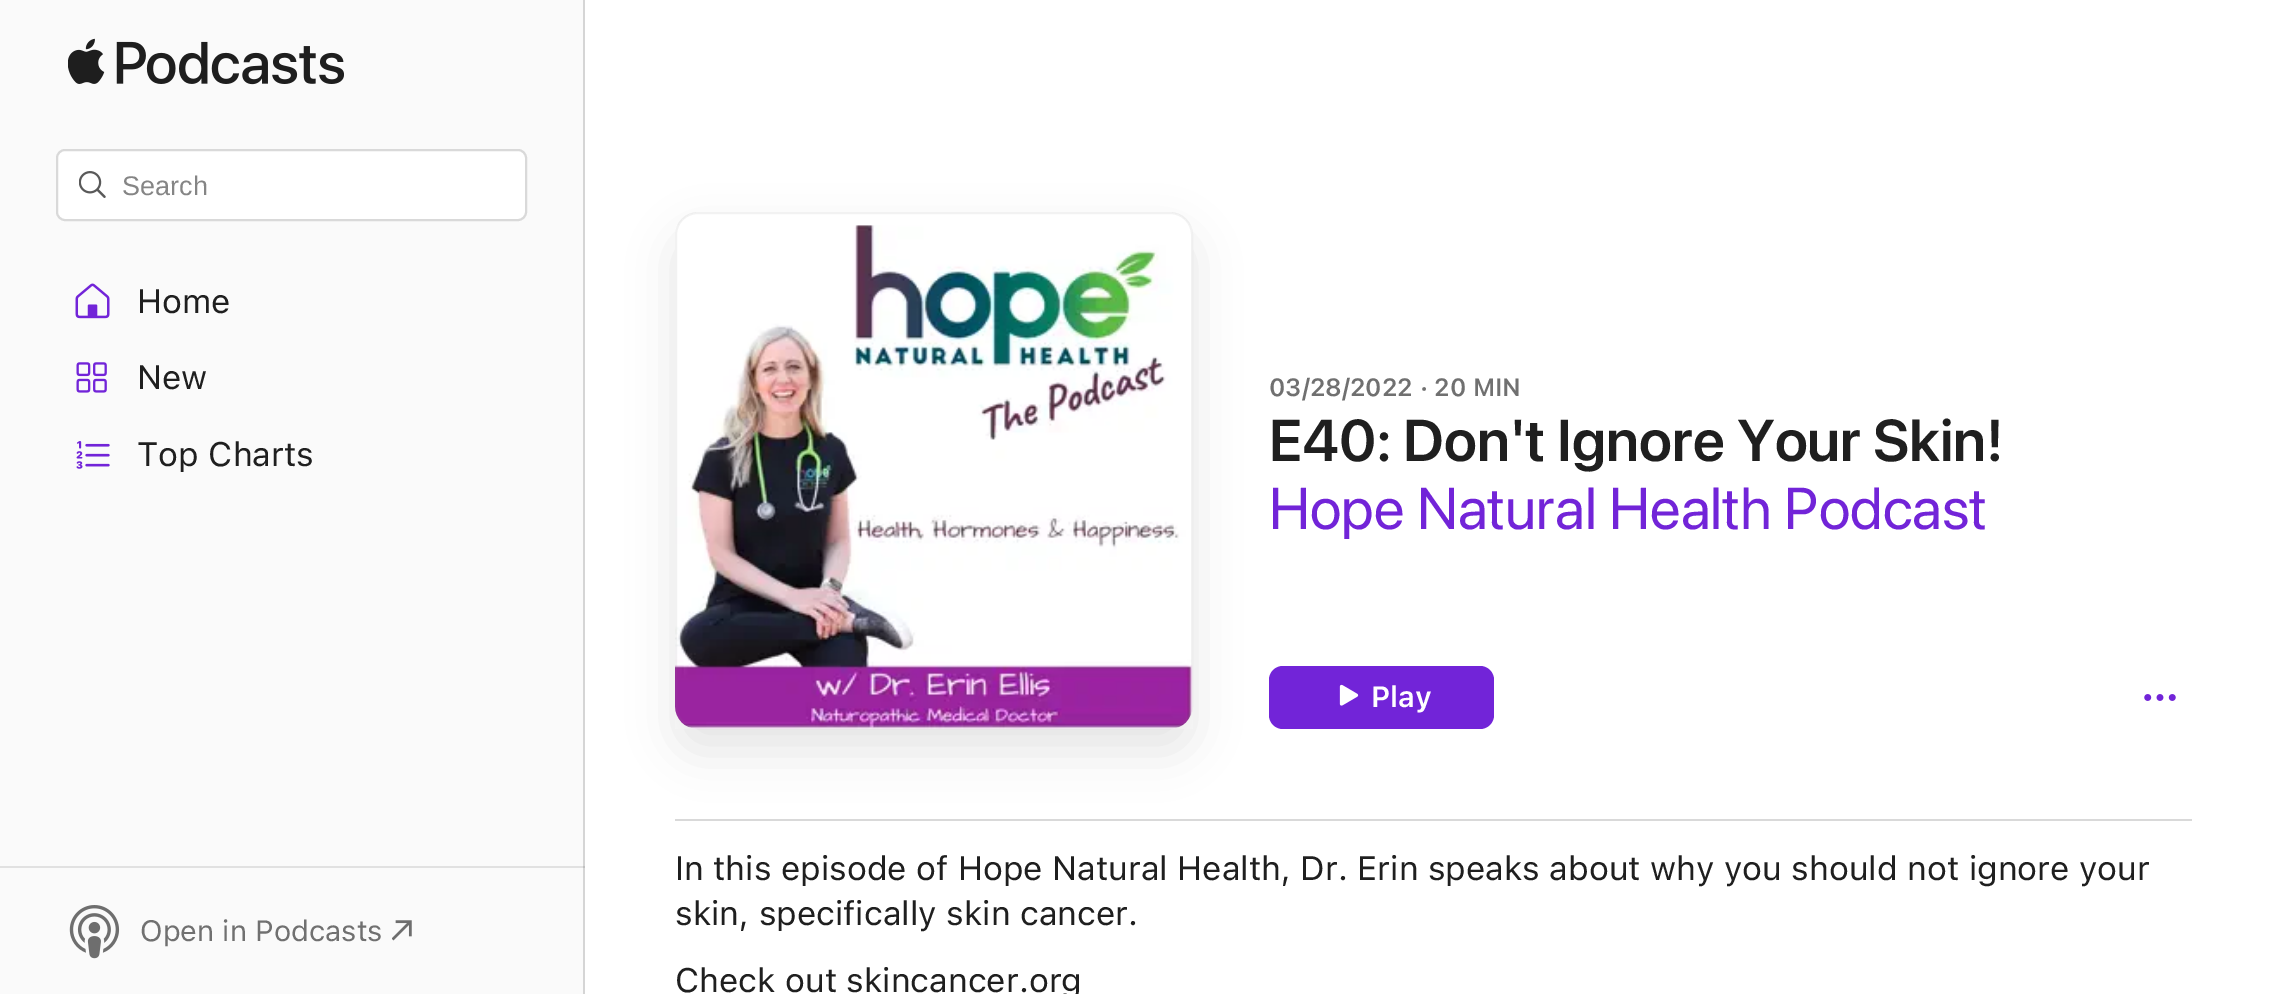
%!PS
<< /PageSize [2280 994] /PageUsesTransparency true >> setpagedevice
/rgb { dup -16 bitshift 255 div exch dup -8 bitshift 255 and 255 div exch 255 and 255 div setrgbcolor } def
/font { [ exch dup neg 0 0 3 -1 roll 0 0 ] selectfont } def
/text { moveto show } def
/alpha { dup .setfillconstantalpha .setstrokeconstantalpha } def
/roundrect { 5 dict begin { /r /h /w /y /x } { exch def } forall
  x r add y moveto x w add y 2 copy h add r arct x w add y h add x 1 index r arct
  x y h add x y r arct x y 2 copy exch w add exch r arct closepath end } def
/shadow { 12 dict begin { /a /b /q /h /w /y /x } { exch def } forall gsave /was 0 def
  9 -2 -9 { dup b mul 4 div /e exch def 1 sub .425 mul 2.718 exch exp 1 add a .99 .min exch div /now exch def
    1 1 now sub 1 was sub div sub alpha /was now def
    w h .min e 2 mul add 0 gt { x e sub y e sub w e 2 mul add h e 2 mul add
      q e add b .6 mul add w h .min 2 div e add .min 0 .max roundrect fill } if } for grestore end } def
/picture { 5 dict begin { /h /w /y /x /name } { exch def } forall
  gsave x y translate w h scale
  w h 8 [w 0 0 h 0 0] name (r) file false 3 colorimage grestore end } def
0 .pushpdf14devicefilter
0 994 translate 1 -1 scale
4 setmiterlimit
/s1 { /LiberationSans-Regular 27 font 16#858585 rgb } def
/s2 { /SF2-Regular 33.75 font 16#1F1F1F rgb } def
/s3 { /SF2-Regular 29.25 font 16#707070 rgb } def
/s4 { /SF-SemiBold 24.75 font 16#707070 rgb } def
/s5 { /SF2-SemiBold 58.5 font 16#1F1F1F rgb } def
/s6 { /SF-Regular 58.5 font 16#7224D8 rgb } def
/s7 { /SF-SemiBold 29.25 font 16#FFFFFF rgb } def
16#FFFFFF rgb
0 0 2280 994 rectfill
16#FAFAFA rgb
0 0 583 994 rectfill
16#E1E1E1 rgb
0 866 585 2 rectfill
16#D5D5D5 rgb
583 0 2 994 rectfill
16#C0C0C0 rgb
583 866 2 2 rectfill
(pic1.raw) 68 38 276 47 picture
16#FFFFFF rgb
57 150 469 70 8 roundrect gsave fill grestore
16#D9D9D9 rgb
2 setlinewidth
stroke
(pic2.raw) 79 171 27 27 picture
s1
(Search) 122 195 text
(pic3.raw) 75 283 35 36 picture
s2
(Home) 137 313 text
(pic4.raw) 76 362 31 31 picture
(New) 137 389 text
(pic5.raw) 76 441 34 28 picture
(Top Charts) 137 466 text
(pic6.raw) 69 905 51 54 picture
s3
(Open in Podcasts) 140 941 text
(pic7.raw) 392 920 20 21 picture
16#D9D9D9 rgb
675 819 1517 2 rectfill
gsave
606 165 moveto 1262 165 lineto 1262 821 lineto 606 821 lineto closepath 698 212 moveto 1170 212 lineto 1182.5 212 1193 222.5 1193 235 curveto 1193 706 lineto 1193 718.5 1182.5 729 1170 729 curveto 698 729 lineto 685.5 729 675 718.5 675 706 curveto 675 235 lineto 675 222.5 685.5 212 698 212 curveto closepath eoclip newpath
16#000000 rgb
675 234 518 518 23 22.5 0.1 shadow
grestore
(pic8.raw) 675 225 518 504 picture
0.1 alpha
16#808080 rgb
676 213 516 515 22 roundrect stroke
1 alpha
s4
(03/28/2022 · 20 MIN) 1269 396 text
s5
(E40: Don't Ignore Your Skin!) 1269 461 text
s6
(Hope Natural Health Podcast) 1269 529 text
1269 666 225 63 14 roundrect fill
(pic9.raw) 1339 684 20 22 picture
s7
(Play) 1371 707 text
(pic10.raw) 2144 694 32 7 picture
s2
(In this episode of Hope Natural Health, Dr. Erin speaks about why you should not ignore your) 675 880 text
(skin, specifically skin cancer.) 675 925 text
(Check out skincancer.org) 675 992 text
.poppdf14devicefilter showpage
